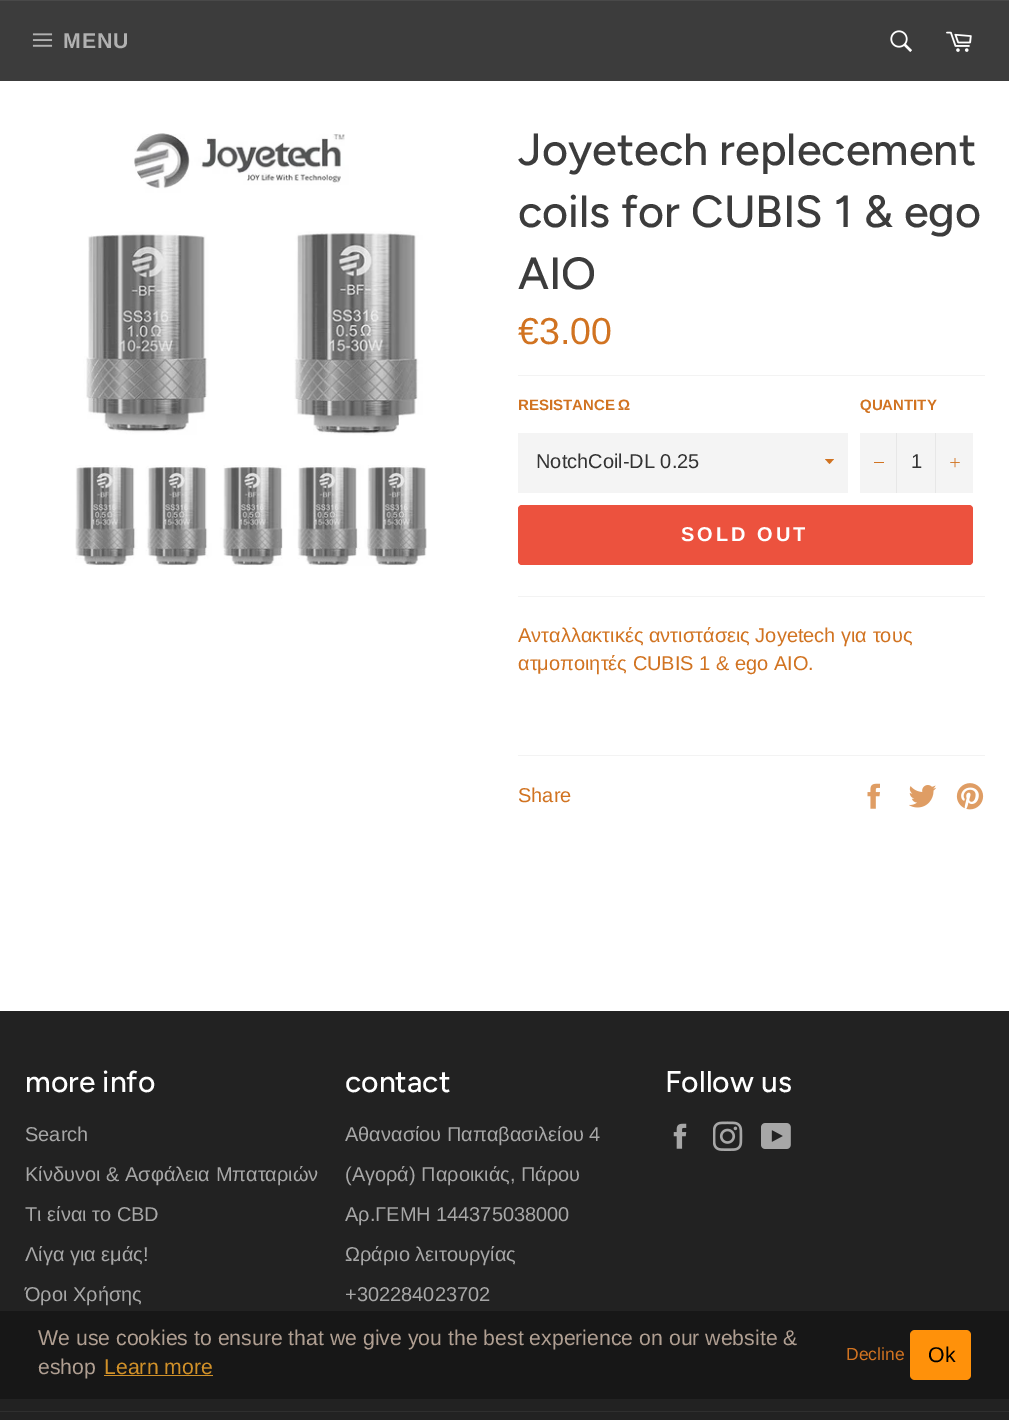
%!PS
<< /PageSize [1009 1420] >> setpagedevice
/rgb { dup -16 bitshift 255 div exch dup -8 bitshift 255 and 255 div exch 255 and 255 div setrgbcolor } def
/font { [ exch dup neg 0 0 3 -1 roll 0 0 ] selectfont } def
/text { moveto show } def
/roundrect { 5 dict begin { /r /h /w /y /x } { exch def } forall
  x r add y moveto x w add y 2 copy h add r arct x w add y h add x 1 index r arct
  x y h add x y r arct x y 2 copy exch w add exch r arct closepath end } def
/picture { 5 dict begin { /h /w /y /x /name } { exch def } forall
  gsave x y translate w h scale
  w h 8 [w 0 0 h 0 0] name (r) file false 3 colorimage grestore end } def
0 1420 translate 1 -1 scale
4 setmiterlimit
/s1 { /Figtree-Medium 45 font 16#3C3C3C rgb } def
/s2 { /Arimo-Regular 37.5 font 16#D17321 rgb } def
/s3 { /Arimo-Bold 15 font 16#D17321 rgb } def
/s4 { /LiberationSans-Bold 15 font 16#D17321 rgb } def
/s5 { /Arimo-Regular 20 font 16#333333 rgb } def
/s6 { /LiberationSans-Regular 20 font 16#D17321 rgb } def
/s7 { /Arimo-Regular 20 font 16#D17321 rgb } def
/s8 { /Figtree-Medium 30 font 16#FFFFFF rgb } def
/s9 { /Arimo-Regular 20 font 16#A7A7A7 rgb } def
/s10 { /LiberationSans-Regular 20 font 16#A7A7A7 rgb } def
/s11 { /LiberationSans-Regular 21.25 font 16#B09F92 rgb } def
/s12 { /LiberationSans-Regular 21.25 font 16#D19129 rgb } def
/s13 { /LiberationSans-Regular 17.5 font 16#D17321 rgb } def
/s14 { /LiberationSans-Regular 21.25 font 16#000000 rgb } def
16#FFFFFF rgb
0 0 1009 1420 rectfill
16#3C3C3C rgb
0 1 1009 80 rectfill
16#494949 rgb
0 0 1009 1 rectfill
(pic1.raw) 32 33 21 14 picture
/Arimo-Bold 21.25 font
16#B1B1B1 rgb
63 48 moveto 1 0 (MENU) ashow
(pic2.raw) 890 30 22 22 picture
(pic3.raw) 946 31 26 21 picture
(pic4.raw) 75 133 352 433 picture
s1
(Joyetech replecement) 518 165 text
(coils for CUBIS 1 & ego) 518 227 text
(AIO) 518 289 text
s2
(€3.00) 518 344 text
16#F3F3F3 rgb
518 375 467 1 rectfill
s3
(RESISTANCE) 518 410 text
s4
(Ω) 618 410 text
16#F4F4F4 rgb
518 433 330 60 rectfill
16#D17321 rgb
825 459 moveto 829.5 464 lineto 834 459 lineto closepath fill
s5
(NotchCoil-DL 0.25) 536 468 text
s3
(QUANTITY) 860 410 text
16#F4F4F4 rgb
860 433 113 60 rectfill
16#E7E7E7 rgb
896 433 1 60 rectfill
16#D17321 rgb
874 462 10 1 rectfill
s5
(1) 911 468 text
16#E7E7E7 rgb
935 433 1 60 rectfill
(pic5.raw) 950 458 10 10 picture
16#EC523E rgb
518 505 455 60 4 roundrect fill
/Arimo-Bold 20 font
16#FFFFFF rgb
681 541 moveto 3 0 (SOLD OUT) ashow
16#F3F3F3 rgb
518 596 467 1 rectfill
s6
(Ανταλλακτικές αντιστάσεις Joyetech για τους) 518 642 text
(ατμοποιητές CUBIS 1 & ego AIO.) 518 670 text
16#F3F3F3 rgb
518 755 467 1 rectfill
s7
(Share) 518 802 text
(pic6.raw) 867 783 13 26 picture
(pic7.raw) 909 785 28 23 picture
(pic8.raw) 956 783 28 27 picture
16#222222 rgb
0 1011 1009 409 rectfill
s8
(more info) 25 1092 text
s9
(Search) 25 1141 text
s10
(Κίνδυνοι & Ασφάλεια Μπαταριών) 25 1181 text
(Τι είναι το CBD) 25 1221 text
(Λίγα για εμάς!) 25 1261 text
(Όροι Χρήσης) 25 1301 text
s8
(contact) 345 1092 text
s10
(Αθανασίου Παπαβασιλείου 4) 345 1141 text
(\(Αγορά\) Παροικιάς, Πάρου) 345 1181 text
(Αρ ΓΕΜΗ) 345 1221 text
s9
(144375038000) 436 1221 text
(.) 370 1221 text
s10
(Ωράριο λειτουργίας) 345 1261 text
s9
(+302284023702) 345 1301 text
s8
(Follow us) 665 1092 text
(pic9.raw) 673 1123 14 26 picture
(pic10.raw) 713 1121 30 30 picture
(pic11.raw) 761 1123 30 26 picture
16#2F2F2F rgb
0 1411 1009 1 rectfill
16#171717 rgb
0 1311 1009 88 rectfill
s11
(We use cookies to ensure that we give you the best experience on our website &) 38 1345 text
(eshop) 38 1374 text
s12
(Learn more) 104 1374 text
104 1375 109 1 rectfill
s13
(Decline) 846 1360 text
16#FF910A rgb
910 1330 61 50 5 roundrect fill
s14
(Ok) 928 1362 text
showpage
